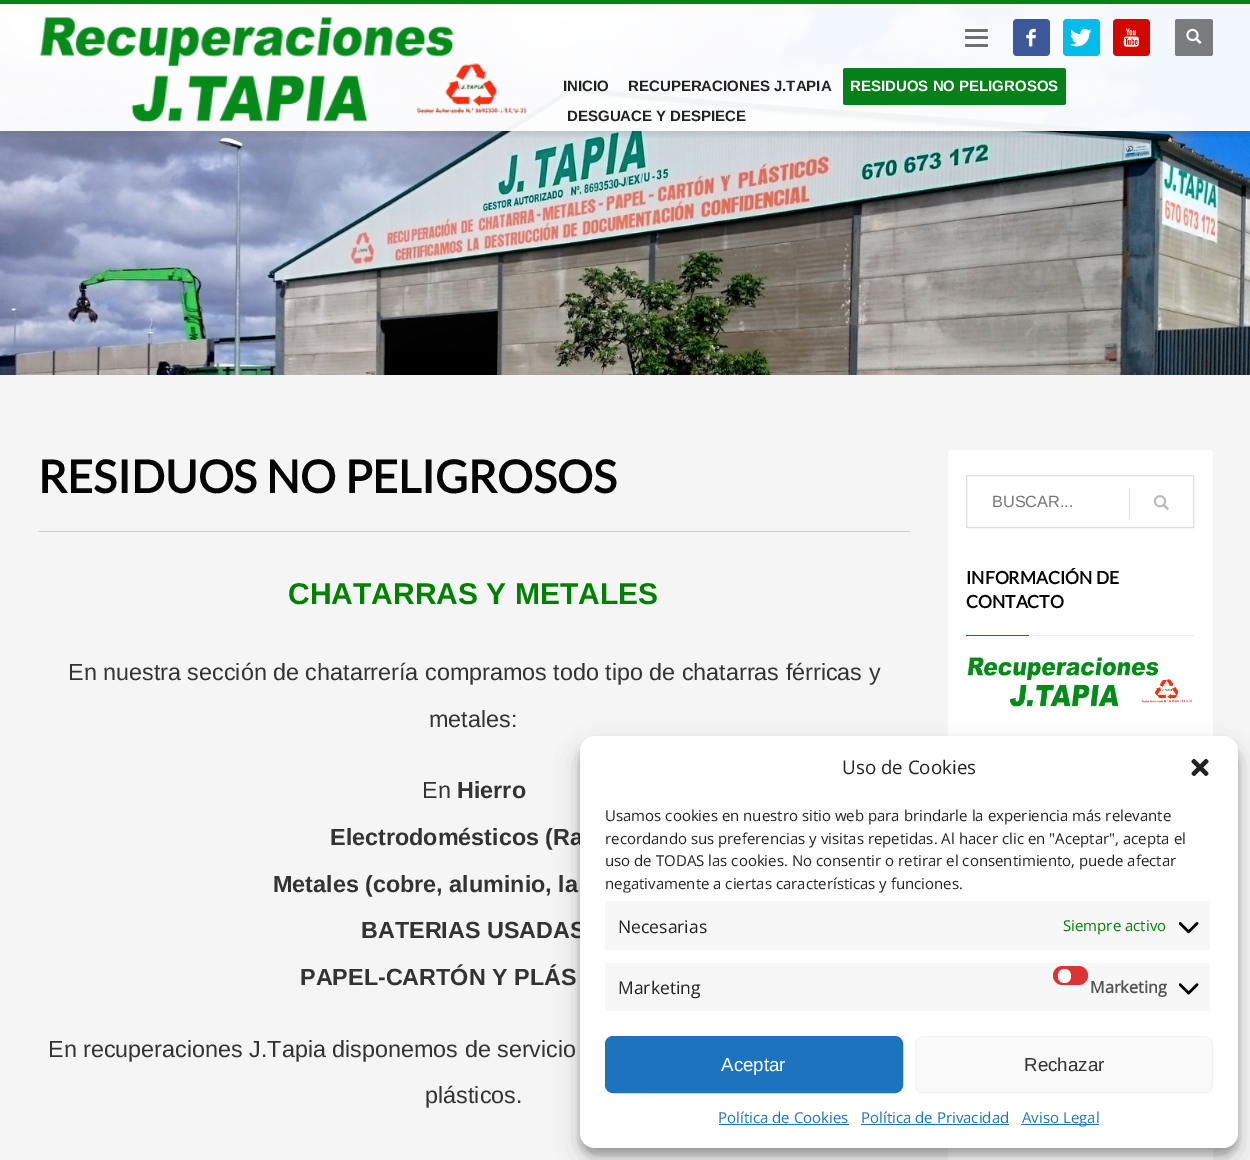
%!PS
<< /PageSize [1250 1160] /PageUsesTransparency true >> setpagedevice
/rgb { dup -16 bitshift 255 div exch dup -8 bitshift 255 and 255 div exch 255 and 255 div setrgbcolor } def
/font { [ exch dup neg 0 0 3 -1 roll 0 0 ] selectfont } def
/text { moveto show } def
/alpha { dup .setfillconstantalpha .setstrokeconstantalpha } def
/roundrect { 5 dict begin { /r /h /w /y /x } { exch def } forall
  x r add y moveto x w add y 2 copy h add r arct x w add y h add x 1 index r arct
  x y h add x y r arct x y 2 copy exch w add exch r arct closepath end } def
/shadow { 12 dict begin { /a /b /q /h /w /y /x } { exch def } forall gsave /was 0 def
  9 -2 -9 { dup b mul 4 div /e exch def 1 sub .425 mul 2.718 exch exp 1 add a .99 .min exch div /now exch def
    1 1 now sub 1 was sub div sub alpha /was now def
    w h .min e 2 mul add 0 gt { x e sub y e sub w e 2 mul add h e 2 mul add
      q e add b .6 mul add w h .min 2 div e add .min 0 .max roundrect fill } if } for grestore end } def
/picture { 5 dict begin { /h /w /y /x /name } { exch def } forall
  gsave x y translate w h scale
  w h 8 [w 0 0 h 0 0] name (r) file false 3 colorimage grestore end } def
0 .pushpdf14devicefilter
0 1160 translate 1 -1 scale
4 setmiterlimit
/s1 { /LiberationSans-Bold 15 font 16#212121 rgb } def
/s2 { /LiberationSans-Bold 15 font 16#FFFFFF rgb } def
/s3 { /Lato-Bold 45 font 16#050505 rgb } def
/s4 { /LiberationSans-Bold 30 font 16#008000 rgb } def
/s5 { /LiberationSans-Regular 23.35 font 16#333333 rgb } def
/s6 { /LiberationSans-Bold 23.35 font 16#333333 rgb } def
/s7 { /LiberationSans-Regular 16.25 font 16#757575 rgb } def
/s8 { /Lato-Bold 17.5 font 16#050505 rgb } def
/s9 { /OpenSans-Regular 18.75 font 16#212121 rgb } def
/s10 { /OpenSans-Regular 15 font 16#212121 rgb } def
/s11 { /OpenSans-Regular 17.5 font 16#212121 rgb } def
/s12 { /OpenSans-Regular 15 font 16#008000 rgb } def
/s13 { /OpenSans-Bold 16.25 font 16#535353 rgb } def
/s14 { /LiberationSans-Regular 18.75 font 16#FFFFFF rgb } def
/s15 { /LiberationSans-Regular 18.75 font 16#333333 rgb } def
/s16 { /OpenSans-Regular 15 font 16#1E73BE rgb } def
16#F5F5F5 rgb
0 0 1250 1160 rectfill
(pic1.raw) 0 4 1250 371 picture
(pic2.raw) 249 4 423 350 picture
gsave
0 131 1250 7 rectclip
16#000000 rgb
0 4 1250 131 0 3 0.1 shadow
grestore
0.95 alpha
16#FFFFFF rgb
0 4 1250 127 rectfill
1 alpha
16#058218 rgb
0 0 1250 4 rectfill
(pic3.raw) 39 17 488 105 picture
16#6F6F6F rgb
965 44 23 3 1.5 roundrect fill
0.7 alpha
16#333333 rgb
965 36 23 3 1.5 roundrect fill
965 29 23 3 1.5 roundrect fill
1 alpha
16#3B5998 rgb
1013 19 37 37 4 roundrect fill
(pic4.raw) 1026 28 10 19 picture
16#00BDEC rgb
1063 19 37 37 4 roundrect fill
(pic5.raw) 1070 28 22 19 picture
16#D20800 rgb
1113 19 37 37 4 roundrect fill
(pic6.raw) 1123 28 16 19 picture
0.5 alpha
16#000000 rgb
1175 19 38 37 2.5 roundrect fill
1 alpha
(pic7.raw) 1186 28 16 16 picture
s1
(INICIO) 563 91 text
(RECUPERACIONES J.TAPIA) 628 91 text
16#058118 rgb
843 68 223 37 2.5 roundrect fill
s2
(RESIDUOS NO PELIGROSOS) 850 91 text
s1
(DESGUACE Y DESPIECE) 567 121 text
16#CBCBCB rgb
38 531 872 1 rectfill
s3
(RESIDUOS NO PELIGROSOS) 38 493 text
s4
(CHATARRAS Y METALES) 288 604 text
s5
(En nuestra sección de chatarrería compramos todo tipo de chatarras férricas y) 68 680 text
(metales:) 429 727 text
(En) 422 798 text
s6
(Hierro) 457 798 text
(Electrodomésticos \(Ra) 330 845 text
(Metales \(cobre, aluminio, la) 273 892 text
(BATERIAS USADAS) 361 938 text
(PAPEL-CARTÓN Y PLÁS) 300 985 text
s5
(En recuperaciones J.Tapia disponemos de servicio) 48 1057 text
(plásticos.) 425 1103 text
16#FFFFFF rgb
948 450 265 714 4 roundrect fill
16#DDDDDD rgb
966.5 475.5 227 52 rectstroke
s7
(BUSCAR...) 992 507 text
16#DDDDDD rgb
1129 488 1 30 rectfill
(pic8.raw) 1153 495 16 15 picture
s8
(INFORMACIÓN DE) 966 584 text
(CONTACTO) 966 608 text
16#058218 rgb
966 635 63 1 rectfill
16#ECECEC rgb
1029 635 165 1 rectfill
(pic9.raw) 967 657 225 50 picture
16#000000 rgb
580 744 658 411 15 4 0.23 shadow
580 749 658 411 15 12.5 0.19 shadow
16#FFFFFF rgb
580 736 658 412 15 roundrect fill
s9
(Uso de Cookies) 842 774 text
(pic10.raw) 1191 758 18 18 picture
s10
(Usamos cookies en nuestro sitio web para brindarle la experiencia más relevante) 605 821 text
(recordando sus preferencias y visitas repetidas. Al hacer clic en "Aceptar", acepta el) 605 844 text
(uso de TODAS las cookies. No consentir o retirar el consentimiento, puede afectar) 605 866 text
(negativamente a ciertas características y funciones.) 605 889 text
16#F7F7F7 rgb
605 901 605 49 rectfill
s11
(Necesarias) 618 933 text
s12
(Siempre activo) 1063 931 text
(pic11.raw) 1179 922 20 12 picture
16#F7F7F7 rgb
605 963 605 48 rectfill
s11
(Marketing) 618 994 text
16#DD3333 rgb
1053 966 35 19 9.5 roundrect fill
16#FFFFFF rgb
1058 969 13 14 6.5 roundrect fill
s13
(Marketing) 1090 993 text
(pic12.raw) 1179 983 20 12 picture
16#1E73BE rgb
605.5 1036.5 297 56 7.5 roundrect gsave fill grestore
stroke
s14
(Aceptar) 721 1071 text
16#F9F9F9 rgb
915.5 1036.5 297 56 7.5 roundrect gsave fill grestore
16#F2F2F2 rgb
stroke
s15
(Rechazar) 1024 1071 text
s16
(Política de Cookies) 718 1123 text
719 1124 130 1 rectfill
(Política de Privacidad) 861 1123 text
861 1124 148 1 rectfill
1021 1124 78 1 rectfill
(Aviso Legal) 1022 1123 text
.poppdf14devicefilter showpage
